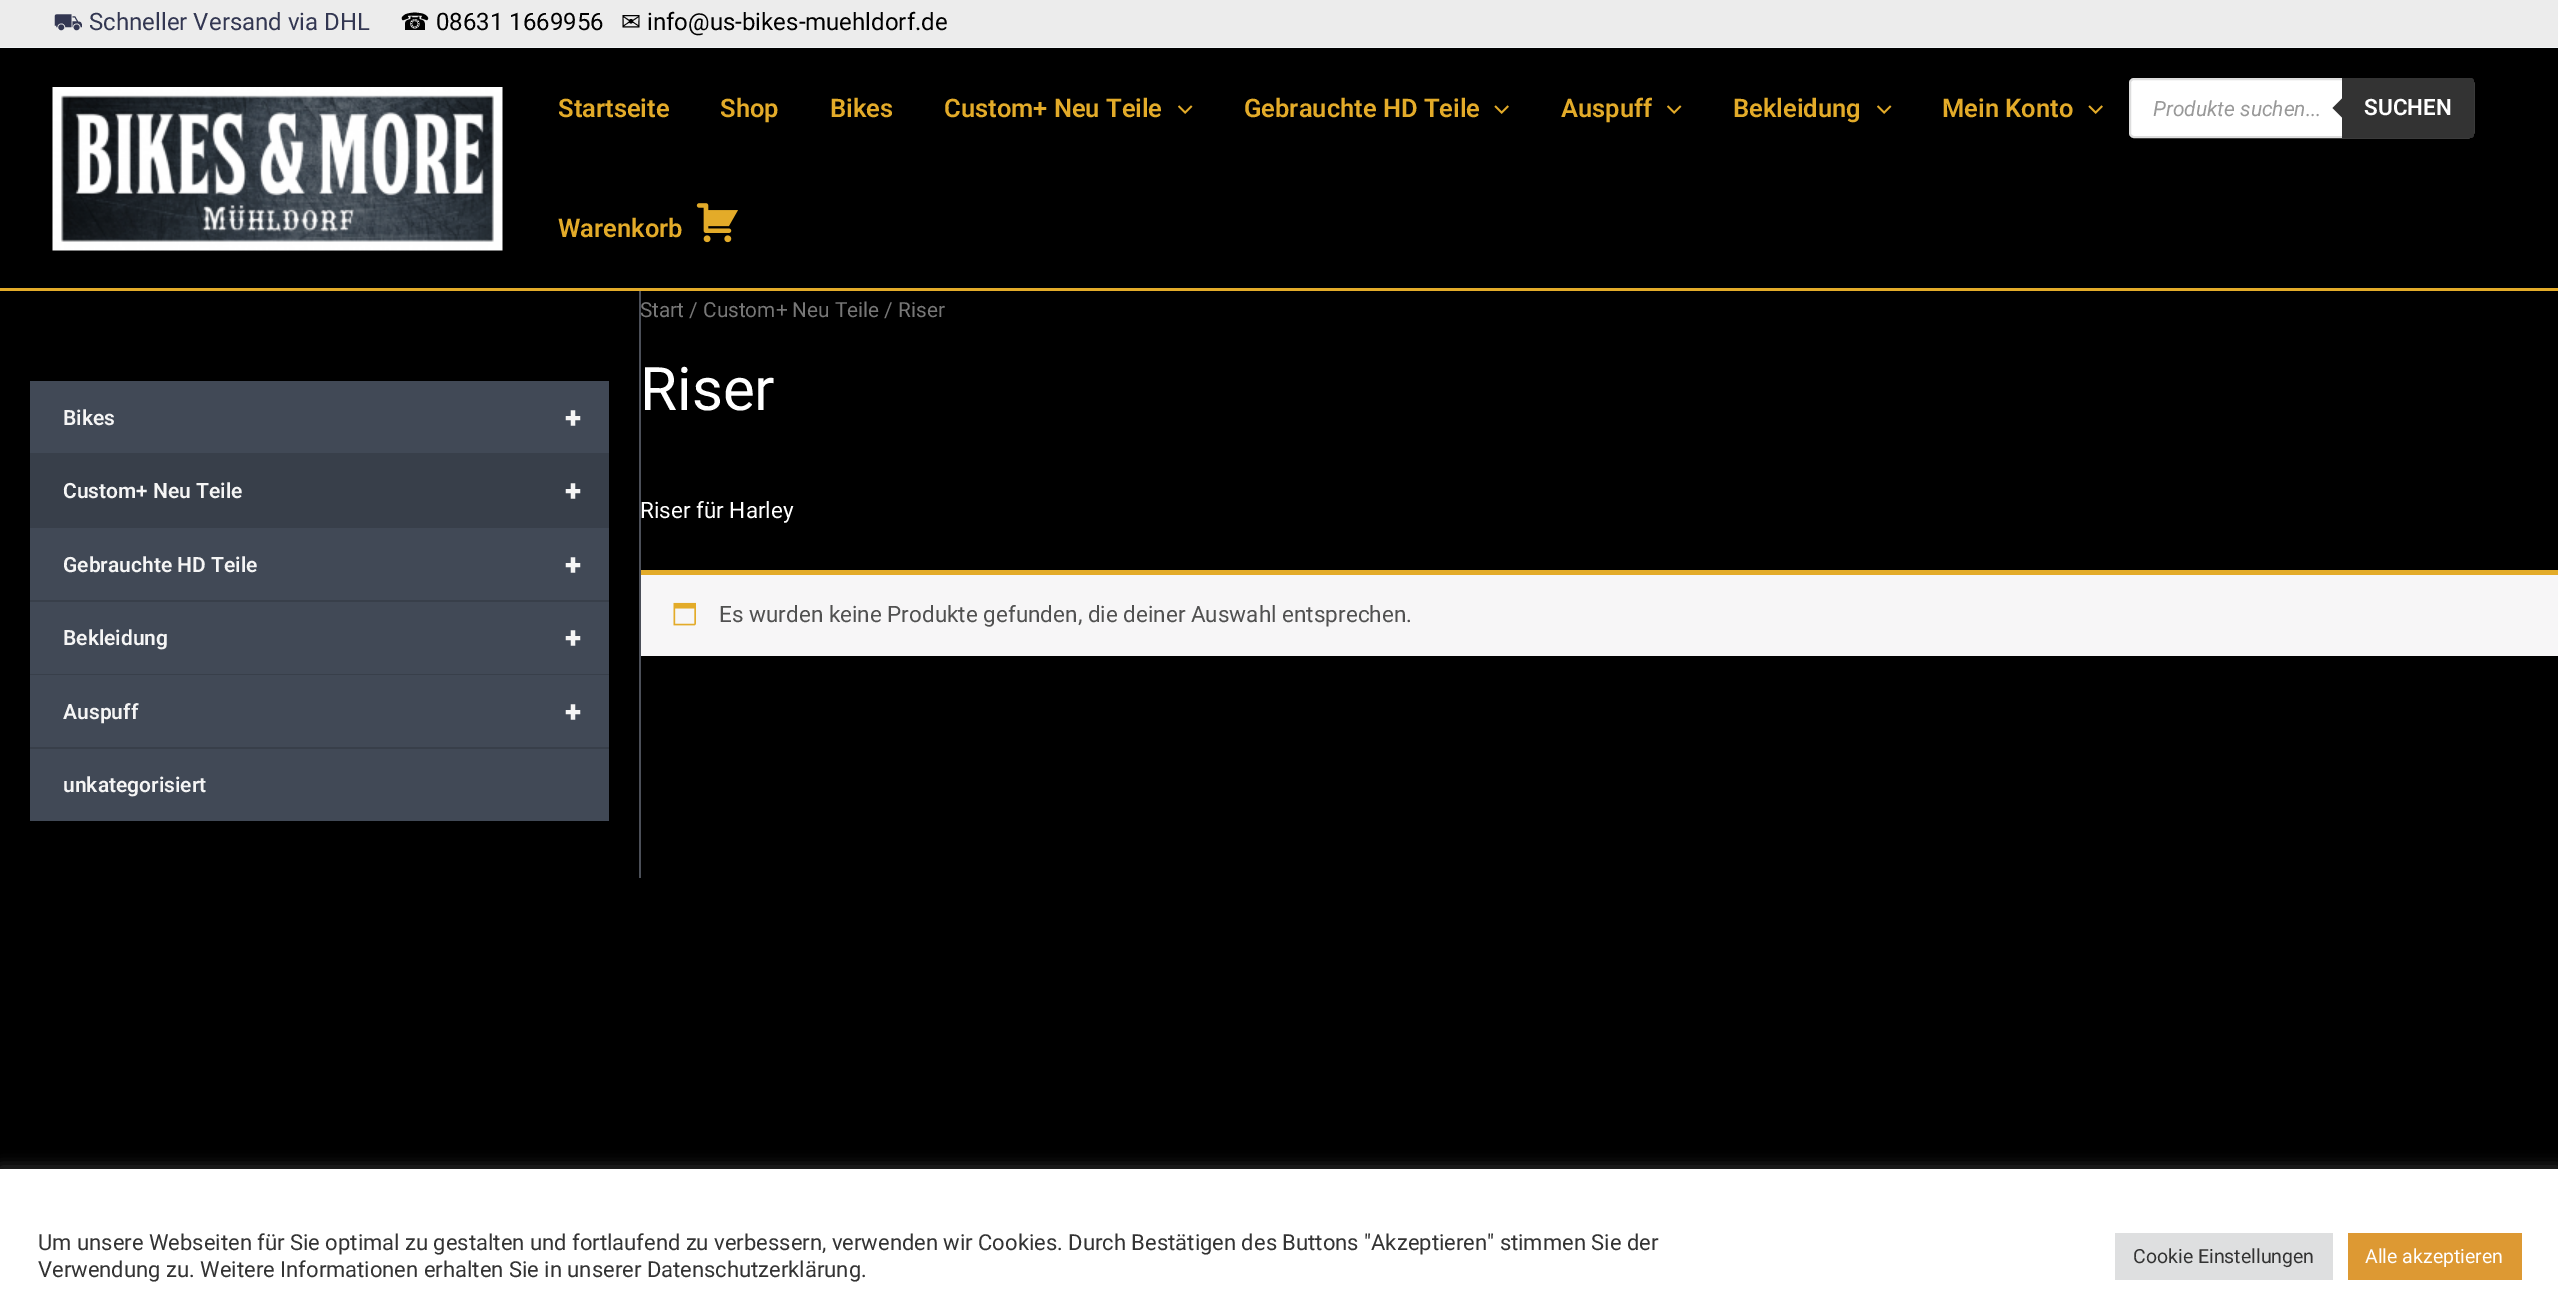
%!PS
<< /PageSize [2558 1307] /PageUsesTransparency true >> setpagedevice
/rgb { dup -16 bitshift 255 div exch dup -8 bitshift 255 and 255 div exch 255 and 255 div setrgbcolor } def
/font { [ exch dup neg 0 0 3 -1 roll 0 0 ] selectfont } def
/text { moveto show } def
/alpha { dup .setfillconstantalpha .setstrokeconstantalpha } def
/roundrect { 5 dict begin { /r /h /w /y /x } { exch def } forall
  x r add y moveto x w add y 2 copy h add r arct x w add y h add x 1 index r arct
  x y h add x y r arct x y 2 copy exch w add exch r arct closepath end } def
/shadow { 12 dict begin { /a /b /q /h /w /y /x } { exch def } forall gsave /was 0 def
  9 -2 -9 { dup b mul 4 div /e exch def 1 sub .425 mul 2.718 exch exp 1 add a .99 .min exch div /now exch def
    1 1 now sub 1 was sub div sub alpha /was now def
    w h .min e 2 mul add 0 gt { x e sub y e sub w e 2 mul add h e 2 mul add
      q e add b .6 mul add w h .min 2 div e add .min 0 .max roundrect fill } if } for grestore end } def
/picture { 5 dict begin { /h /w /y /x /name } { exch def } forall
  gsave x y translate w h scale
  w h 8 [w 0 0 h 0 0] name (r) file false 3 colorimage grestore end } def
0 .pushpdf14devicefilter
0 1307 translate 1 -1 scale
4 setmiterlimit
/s1 { /STIXTwoMath-Regular 24 font 16#333752 rgb } def
/s2 { /Roboto-Regular 24 font 16#333752 rgb } def
/s3 { /DejaVuSans-Regular 24 font 16#000000 rgb } def
/s4 { /Roboto-Regular 24 font 16#000000 rgb } def
/s5 { /Roboto-SemiBold 25.5 font 16#E3AB29 rgb } def
/s6 { /Roboto-Italic 21 font 16#999999 rgb } def
/s7 { /Roboto-SemiBold 22.5 font 16#FFFFFF rgb } def
/s8 { /Roboto-SemiBold 21 font 16#F5F5F5 rgb } def
/s9 { /Roboto-Black 30 font 16#F5F5F5 rgb } def
/s10 { /Roboto-Regular 20.75 font 16#777777 rgb } def
/s11 { /Roboto-Regular 60 font 16#FFFFFF rgb } def
/s12 { /Roboto-Regular 22.5 font 16#FFFFFF rgb } def
/s13 { /Roboto-Regular 22.5 font 16#515151 rgb } def
/s14 { /Roboto-Regular 22 font 16#333333 rgb } def
/s15 { /Roboto-Regular 19.5 font 16#333333 rgb } def
/s16 { /Roboto-Regular 19.5 font 16#FFFFFF rgb } def
16#000000 rgb
0 0 2558 1307 rectfill
16#ECECEC rgb
0 0 2558 47 rectfill
16#F2F5F7 rgb
0 47 2558 1 rectfill
s1
(⛟) 53 30 text
s2
(Schneller Versand via DHL) 89 30 text
s3
(☎) 400 30 text
s4
(08631 1669956) 436 30 text
s3
(✉) 621 30 text
s4
(info@us-bikes-muehldorf.de) 647 30 text
16#E3AB29 rgb
0 288 2558 3 rectfill
(pic1.raw) 52 87 451 164 picture
s5
(Startseite) 558 117 text
(Shop) 720 117 text
(Bikes) 830 117 text
(Custom+ Neu Teile) 944 117 text
(pic2.raw) 1178 105 15 9 picture
(Gebrauchte HD Teile) 1244 117 text
(pic3.raw) 1494 105 15 9 picture
(Auspuff) 1561 117 text
(pic2.raw) 1667 105 15 9 picture
(Bekleidung) 1733 117 text
(pic2.raw) 1877 105 15 9 picture
(Mein Konto) 1942 117 text
(pic3.raw) 2088 105 15 9 picture
16#FFFFFF rgb
2130 79 343 58 4 roundrect gsave fill grestore
16#DDDDDD rgb
2 setlinewidth
stroke
s6
(Produkte suchen...) 2153 116 text
16#333333 rgb
2342 78 moveto 2471 78 lineto 2472.5 78 2474 79.5 2474 81 curveto 2474 135 lineto 2474 136.5 2472.5 138 2471 138 curveto 2342 138 lineto closepath fill
2344.5 96 moveto 2344.5 120 lineto 2332.5 108 lineto closepath fill
s7
(SUCHEN) 2364 115 text
s5
(Warenkorb) 558 237 text
(pic4.raw) 696 203 42 40 picture
16#414956 rgb
30 381 579 72 rectfill
16#383F4A rgb
30 453 579 75 rectfill
s8
(Bikes) 63 425 text
s9
(+) 565 428 text
s8
(Custom+ Neu Teile) 63 498 text
s9
(+) 565 501 text
16#414956 rgb
30 528 579 72 rectfill
16#383F4A rgb
30 600 579 2 rectfill
s8
(Gebrauchte HD Teile) 63 572 text
s9
(+) 565 575 text
16#414956 rgb
30 602 579 72 rectfill
16#383F4A rgb
30 674 579 1 rectfill
s8
(Bekleidung) 63 645 text
s9
(+) 565 648 text
16#414956 rgb
30 675 579 72 rectfill
16#383F4A rgb
30 747 579 2 rectfill
s8
(Auspuff) 63 719 text
s9
(+) 565 722 text
16#414956 rgb
30 749 579 72 rectfill
s8
(unkategorisiert) 63 792 text
16#4B4F58 rgb
639 291 2 587 rectfill
s10
(Start / Custom+ Neu Teile / Riser) 640 317 text
s11
(Riser) 640 410 text
s12
(Riser für Harley) 640 518 text
16#F7F6F7 rgb
641 575 1917 81 rectfill
16#E3AB29 rgb
641 570 1917 5 rectfill
(pic5.raw) 673 602 23 24 picture
s13
(Es wurden keine Produkte gefunden, die deiner Auswahl entsprechen.) 719 622 text
16#ACABAB rgb
0 1167 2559 140 0 7.5 0.3 shadow
16#FFFFFF rgb
0 1169 2558 138 rectfill
s14
(Um unsere Webseiten für Sie optimal zu gestalten und fortlaufend zu verbessern, verwenden wir Cookies. Durch Bestätigen des Buttons "Akzeptieren" stimmen Sie der) 38 1250 text
(Verwendung zu. Weitere Informationen erhalten Sie in unserer Datenschutzerklärung.) 38 1277 text
16#DEDFE0 rgb
2115 1233 218 47 rectfill
s15
(Cookie Einstellungen) 2133 1263 text
16#DD9933 rgb
2348 1233 174 47 rectfill
s16
(Alle akzeptieren) 2365 1263 text
.poppdf14devicefilter showpage
